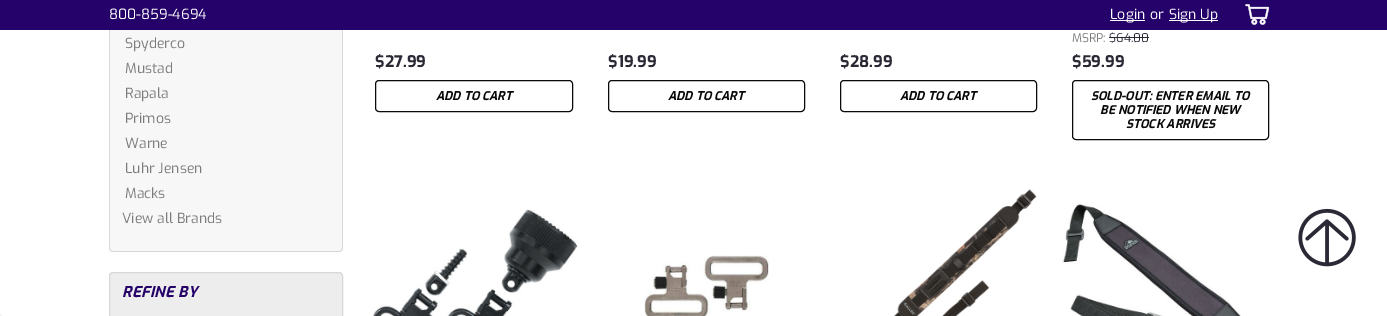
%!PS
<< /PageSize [1387 316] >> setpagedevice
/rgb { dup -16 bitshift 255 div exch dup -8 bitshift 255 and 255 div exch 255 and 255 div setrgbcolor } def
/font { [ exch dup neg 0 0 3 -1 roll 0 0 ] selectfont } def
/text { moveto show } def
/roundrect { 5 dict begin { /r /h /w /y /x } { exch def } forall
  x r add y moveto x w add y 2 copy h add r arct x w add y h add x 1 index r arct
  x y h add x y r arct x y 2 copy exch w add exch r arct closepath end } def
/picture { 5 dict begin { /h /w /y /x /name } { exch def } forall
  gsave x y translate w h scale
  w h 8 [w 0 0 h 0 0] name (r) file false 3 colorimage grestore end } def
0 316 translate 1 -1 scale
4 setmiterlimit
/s1 { /Exo-Regular 14 font 16#FFFFFF rgb } def
/s2 { /Exo-Regular 14 font 16#7B7B7B rgb } def
/s3 { /Exo-Bold 16 font 16#2B2935 rgb } def
/s4 { /Exo-BoldItalic 12 font 16#0A0A0A rgb } def
/s5 { /Exo-Regular 12 font 16#7B7B7B rgb } def
/s6 { /Exo-Regular 12 font 16#2B2935 rgb } def
16#FFFFFF rgb
0 0 1387 316 rectfill
16#F7F7F7 rgb
109 -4 moveto 343 -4 lineto 343 248 lineto 343 250 341 252 339 252 curveto 113 252 lineto 111 252 109 250 109 248 curveto closepath fill
16#D7D7D7 rgb
109 -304 moveto 343 -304 lineto 343 248 lineto 343 250 341 252 339 252 curveto 113 252 lineto 111 252 109 250 109 248 curveto closepath 110 -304 moveto 342 -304 lineto 342 248 lineto 342 250 341 251 339 251 curveto 113 251 lineto 111 251 110 250 110 248 curveto closepath eofill
16#240269 rgb
0 0 1387 30 rectfill
s1
(800-859-4694) 109 19 text
1110 20 35 1 rectfill
(Login) 1110 19 text
(or) 1150 19 text
1169 20 49 1 rectfill
(Sign Up) 1169 19 text
(pic1.raw) 1245 4 25 21 picture
s2
(Spyderco) 125 48 text
(Mustad) 125 73 text
(Rapala) 125 98 text
(Primos) 125 123 text
(Warne) 125 148 text
(Luhr Jensen) 125 173 text
(Macks) 125 198 text
(View all Brands) 122 223 text
16#EDEDED rgb
109.5 272.5 233 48 3.5 roundrect gsave fill grestore
16#D7D7D7 rgb
stroke
/Exo-BoldItalic 15 font
16#240269 rgb
122 297 moveto 0.25 0 (REFINE BY) ashow
s3
($27.99) 375 67 text
16#0A0A0A rgb
375.5 80.5 197 31 3.5 roundrect stroke
s4
(ADD TO CART) 436 100 text
s3
($19.99) 608 67 text
16#0A0A0A rgb
608.5 80.5 196 31 3.5 roundrect stroke
s4
(ADD TO CART) 668 100 text
s3
($28.99) 840 67 text
16#0A0A0A rgb
840.5 80.5 196 31 3.5 roundrect stroke
s4
(ADD TO CART) 900 100 text
s5
(MSRP:) 1072 42 text
s6
($64.00) 1109 42 text
1109 37 40 1 rectfill
s3
($59.99) 1072 67 text
16#0A0A0A rgb
1072.5 80.5 196 59 3.5 roundrect stroke
s4
(SOLD-OUT: ENTER EMAIL TO) 1091 100 text
(BE NOTIFIED WHEN NEW) 1100 114 text
(STOCK ARRIVES) 1126 128 text
(pic2.raw) 372 209 206 107 picture
(pic3.raw) 644 255 125 61 picture
(pic4.raw) 894 189 143 127 picture
(pic5.raw) 1062 203 179 113 picture
(pic6.raw) 1298 208 58 59 picture
16#F5F5F5 rgb
0 314 2 2 rectfill
showpage
